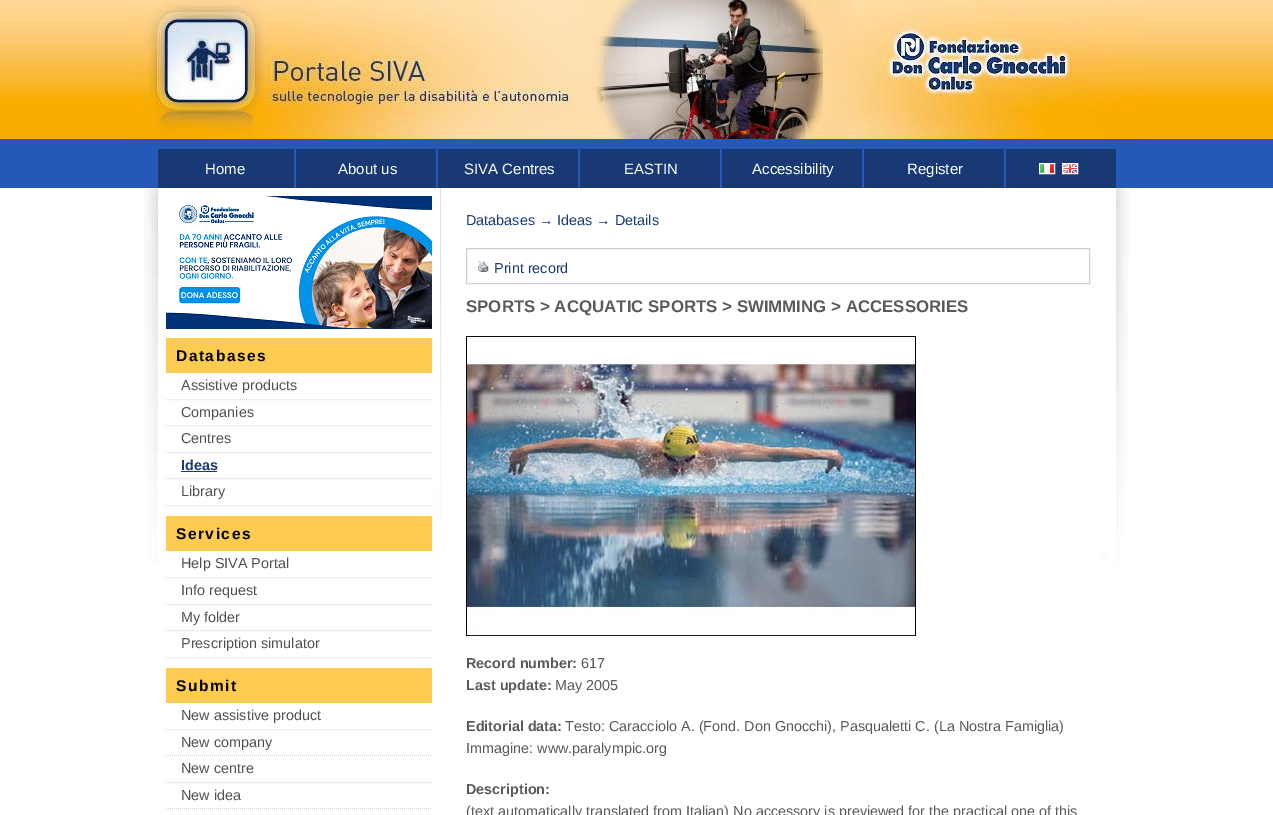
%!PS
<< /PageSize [1273 815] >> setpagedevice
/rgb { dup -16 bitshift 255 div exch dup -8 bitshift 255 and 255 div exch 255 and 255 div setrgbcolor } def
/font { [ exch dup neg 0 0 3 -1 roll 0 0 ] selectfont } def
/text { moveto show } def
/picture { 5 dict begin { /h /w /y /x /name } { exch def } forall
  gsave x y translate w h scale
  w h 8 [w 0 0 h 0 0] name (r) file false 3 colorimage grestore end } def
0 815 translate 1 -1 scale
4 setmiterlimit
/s1 { /LiberationSans-Regular 15 font 16#FFFFFF rgb } def
/s2 { /LiberationSans-Regular 14.4 font 16#54504F rgb } def
/s3 { /LiberationSans-Bold 14.4 font 16#193974 rgb } def
/s4 { /LiberationSans-Regular 14.4 font 16#193974 rgb } def
/s5 { /LiberationSans-Bold 16.85 font 16#5B5A58 rgb } def
/s6 { /LiberationSans-Bold 14.4 font 16#5B5A58 rgb } def
/s7 { /LiberationSans-Regular 14.4 font 16#5B5A58 rgb } def
16#FFFFFF rgb
0 0 1273 815 rectfill
16#F8AC00 rgb
0 137 1273 2 rectfill
(pic1.raw) 0 0 1273 137 picture
(pic2.raw) 131 0 1011 139 picture
16#2459B7 rgb
0 139 1273 49 rectfill
16#193974 rgb
158 149 958 39 rectfill
16#2459B7 rgb
294 149 2 39 rectfill
s1
(Home) 205 174 text
16#2459B7 rgb
436 149 2 39 rectfill
s1
(About us) 338 174 text
16#2459B7 rgb
578 149 2 39 rectfill
s1
(SIVA Centres) 464 174 text
16#2459B7 rgb
720 149 2 39 rectfill
s1
(EASTIN) 624 174 text
16#2459B7 rgb
862 149 2 39 rectfill
s1
(Accessibility) 752 174 text
16#2459B7 rgb
1004 149 2 39 rectfill
s1
(Register) 907 174 text
1039.5 163.5 15 10 rectstroke
(pic3.raw) 1040 164 14 9 picture
1062.5 163.5 15 10 rectstroke
(pic4.raw) 1063 164 14 9 picture
(pic5.raw) 144 188 985 376 picture
(pic6.raw) 166 196 266 133 picture
162 468 1 8 rectfill
16#FDCB50 rgb
166 338 266 35 rectfill
/LiberationSans-Bold 15.5 font
16#000000 rgb
176 361 moveto 1.5 0 (Databases) ashow
16#D9D9DB rgb
[1 1] 0 setdash
166 399.5 moveto 432 399.5 lineto stroke
s2
(Assistive products) 181 390 text
16#D9D9DB rgb
166 425.5 moveto 432 425.5 lineto stroke
s2
(Companies) 181 417 text
16#D9D9DB rgb
166 452.5 moveto 432 452.5 lineto stroke
s2
(Centres) 181 443 text
16#D9D9DB rgb
166 478.5 moveto 432 478.5 lineto stroke
s3
(Ideas) 181 470 text
181 471 36 1 rectfill
16#D9D9DB rgb
166 505.5 moveto 432 505.5 lineto stroke
s2
(Library) 181 496 text
16#FDCB50 rgb
166 516 266 35 rectfill
/LiberationSans-Bold 15.5 font
16#000000 rgb
176 539 moveto 1.5 0 (Services) ashow
16#D9D9DB rgb
166 577.5 moveto 432 577.5 lineto stroke
s2
(Help SIVA Portal) 181 568 text
16#D9D9DB rgb
166 604.5 moveto 432 604.5 lineto stroke
s2
(Info request) 181 595 text
16#D9D9DB rgb
166 630.5 moveto 432 630.5 lineto stroke
s2
(My folder) 181 622 text
16#D9D9DB rgb
166 657.5 moveto 432 657.5 lineto stroke
s2
(Prescription simulator) 181 648 text
16#FDCB50 rgb
166 668 266 35 rectfill
/LiberationSans-Bold 15.5 font
16#000000 rgb
176 691 moveto 1.5 0 (Submit) ashow
16#D9D9DB rgb
166 729.5 moveto 432 729.5 lineto stroke
s2
(New assistive product) 181 720 text
16#D9D9DB rgb
166 755.5 moveto 432 755.5 lineto stroke
s2
(New company) 181 747 text
16#D9D9DB rgb
166 782.5 moveto 432 782.5 lineto stroke
s2
(New centre) 181 773 text
16#D9D9DB rgb
166 808.5 moveto 432 808.5 lineto stroke
s2
(New idea) 181 800 text
s4
(Databases → Ideas → Details) 466 225 text
16#CFCFCF rgb
[] 0 setdash
466.5 248.5 623 35 rectstroke
(pic7.raw) 478 261 11 11 picture
s4
(Print record) 494 273 text
s5
(SPORTS > ACQUATIC SPORTS > SWIMMING > ACCESSORIES) 466 312 text
(pic8.raw) 466 336 450 300 picture
s6
(Record number:) 466 668 text
s7
(617) 581 668 text
s6
(Last update:) 466 690 text
s7
(May 2005) 555 690 text
s6
(Editorial data:) 466 731 text
s7
(Testo: Caracciolo A. \(Fond. Don Gnocchi\), Pasqualetti C. \(La Nostra Famiglia\)) 565 731 text
(Immagine: www.paralympic.org) 466 753 text
s6
(Description:) 466 794 text
s7
(\(text automatically translated from Italian\) No accessory is previewed for the practical one of this) 466 816 text
showpage
